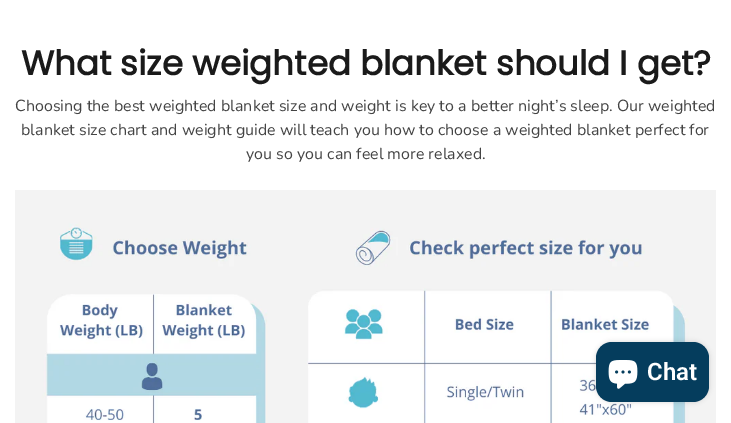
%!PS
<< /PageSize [731 423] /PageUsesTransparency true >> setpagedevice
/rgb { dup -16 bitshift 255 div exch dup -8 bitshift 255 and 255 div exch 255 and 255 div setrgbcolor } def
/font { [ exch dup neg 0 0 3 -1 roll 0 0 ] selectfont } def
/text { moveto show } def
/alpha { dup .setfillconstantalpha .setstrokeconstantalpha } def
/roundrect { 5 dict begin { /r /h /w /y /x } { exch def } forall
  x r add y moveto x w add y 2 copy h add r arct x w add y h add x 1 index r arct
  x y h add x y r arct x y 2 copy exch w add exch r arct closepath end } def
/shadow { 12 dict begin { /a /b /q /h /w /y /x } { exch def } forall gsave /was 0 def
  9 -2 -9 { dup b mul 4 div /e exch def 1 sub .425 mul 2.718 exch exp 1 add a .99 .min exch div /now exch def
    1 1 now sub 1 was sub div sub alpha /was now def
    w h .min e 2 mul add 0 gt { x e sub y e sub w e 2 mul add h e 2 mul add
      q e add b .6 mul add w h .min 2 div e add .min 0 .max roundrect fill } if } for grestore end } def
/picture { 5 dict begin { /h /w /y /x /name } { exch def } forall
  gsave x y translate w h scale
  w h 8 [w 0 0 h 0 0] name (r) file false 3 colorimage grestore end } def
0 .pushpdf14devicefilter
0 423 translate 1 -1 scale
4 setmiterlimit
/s1 { /Poppins-Bold 34 font 16#1A1A1A rgb } def
/s2 { /Nunito-Regular 16 font 16#444444 rgb } def
/s3 { /Roboto-SemiBold 24 font 16#FFFFFF rgb } def
16#FFFFFF rgb
0 0 731 423 rectfill
s1
(What size weighted blanket should I get?) 21 75 text
s2
(Choosing the best weighted blanket size and weight is key to a better night’s sleep. Our weighted) 15 111 text
(blanket size chart and weight guide will teach you how to choose a weighted blanket perfect for) 21 135 text
(you so you can feel more relaxed.) 246 159 text
(pic1.raw) 15 190 701 233 picture
16#000000 rgb
596 342 113 60 16 2.5 0.15 shadow
16#053D5D rgb
596 342 113 60 16 roundrect fill
(pic2.raw) 608 360 30 29 picture
s3
(Chat) 647 380 text
.poppdf14devicefilter showpage
